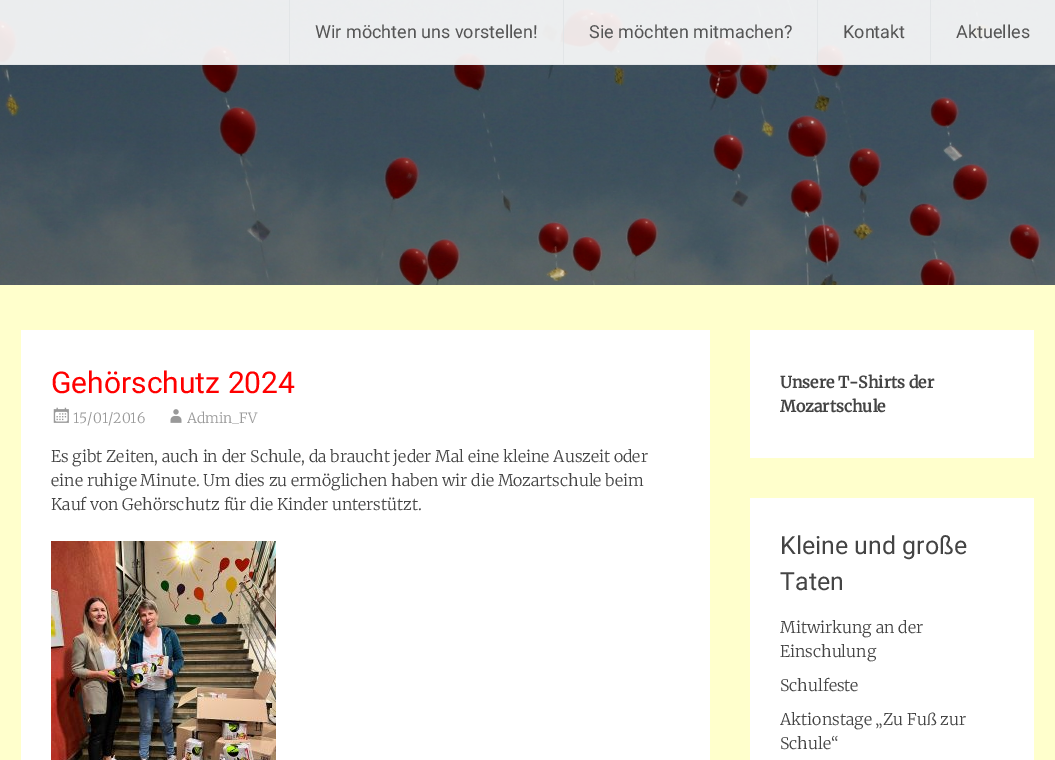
%!PS
<< /PageSize [1055 760] /PageUsesTransparency true >> setpagedevice
/rgb { dup -16 bitshift 255 div exch dup -8 bitshift 255 and 255 div exch 255 and 255 div setrgbcolor } def
/font { [ exch dup neg 0 0 3 -1 roll 0 0 ] selectfont } def
/text { moveto show } def
/alpha { dup .setfillconstantalpha .setstrokeconstantalpha } def
/picture { 5 dict begin { /h /w /y /x /name } { exch def } forall
  gsave x y translate w h scale
  w h 8 [w 0 0 h 0 0] name (r) file false 3 colorimage grestore end } def
0 .pushpdf14devicefilter
0 760 translate 1 -1 scale
4 setmiterlimit
/s1 { /Roboto-Regular 18 font 16#555555 rgb } def
/s2 { /Roboto-Regular 30 font 16#FF0000 rgb } def
/s3 { /Merriweather-Light 14 font 16#999999 rgb } def
/s4 { /Merriweather-Light 16 font 16#444444 rgb } def
/s5 { /Merriweather-Bold 16 font 16#444444 rgb } def
/s6 { /Roboto-Regular 25 font 16#444444 rgb } def
16#FFFFFF rgb
0 0 1055 760 rectfill
(pic1.raw) 0 0 1055 285 picture
0.9 alpha
0 0 1055 65 rectfill
16#E1E4E6 rgb
0 64 1055 1 rectfill
1 alpha
16#E2E5E7 rgb
289 0 1 64 rectfill
s1
(Wir möchten uns vorstellen!) 315 38 text
0.9 alpha
16#E1E4E6 rgb
563 0 1 64 rectfill
1 alpha
s1
(Sie möchten mitmachen?) 589 38 text
0.9 alpha
16#E1E4E6 rgb
817 0 1 64 rectfill
1 alpha
s1
(Kontakt) 843 38 text
16#E2E5E7 rgb
930 0 1 64 rectfill
s1
(Aktuelles) 956 38 text
16#FFFFCC rgb
0 285 1055 475 rectfill
16#FFFFFF rgb
21 330 689 430 rectfill
s2
(Gehörschutz 2024) 51 393 text
(pic2.raw) 53 407 16 16 picture
s3
(15/01/2016) 73 423 text
(pic3.raw) 170 409 12 14 picture
(Admin_FV) 187 423 text
s4
(Es gibt Zeiten, auch in der Schule, da braucht jeder Mal eine kleine Auszeit oder) 51 462 text
(eine ruhige Minute. Um dies zu ermöglichen haben wir die Mozartschule beim) 51 486 text
(Kauf von Gehörschutz für die Kinder unterstützt.) 51 510 text
(pic4.raw) 51 541 225 219 picture
16#FFFFFF rgb
750 330 284 128 rectfill
s5
(Unsere T-Shirts der) 780 388 text
(Mozartschule) 780 412 text
16#FFFFFF rgb
750 498 284 262 rectfill
s6
(Kleine und große) 780 554 text
(Taten) 780 590 text
s4
(Mitwirkung an der) 780 633 text
(Einschulung) 780 657 text
(Schulfeste) 780 691 text
(Aktionstage „Zu Fuß zur) 780 725 text
(Schule“) 780 749 text
.poppdf14devicefilter showpage
